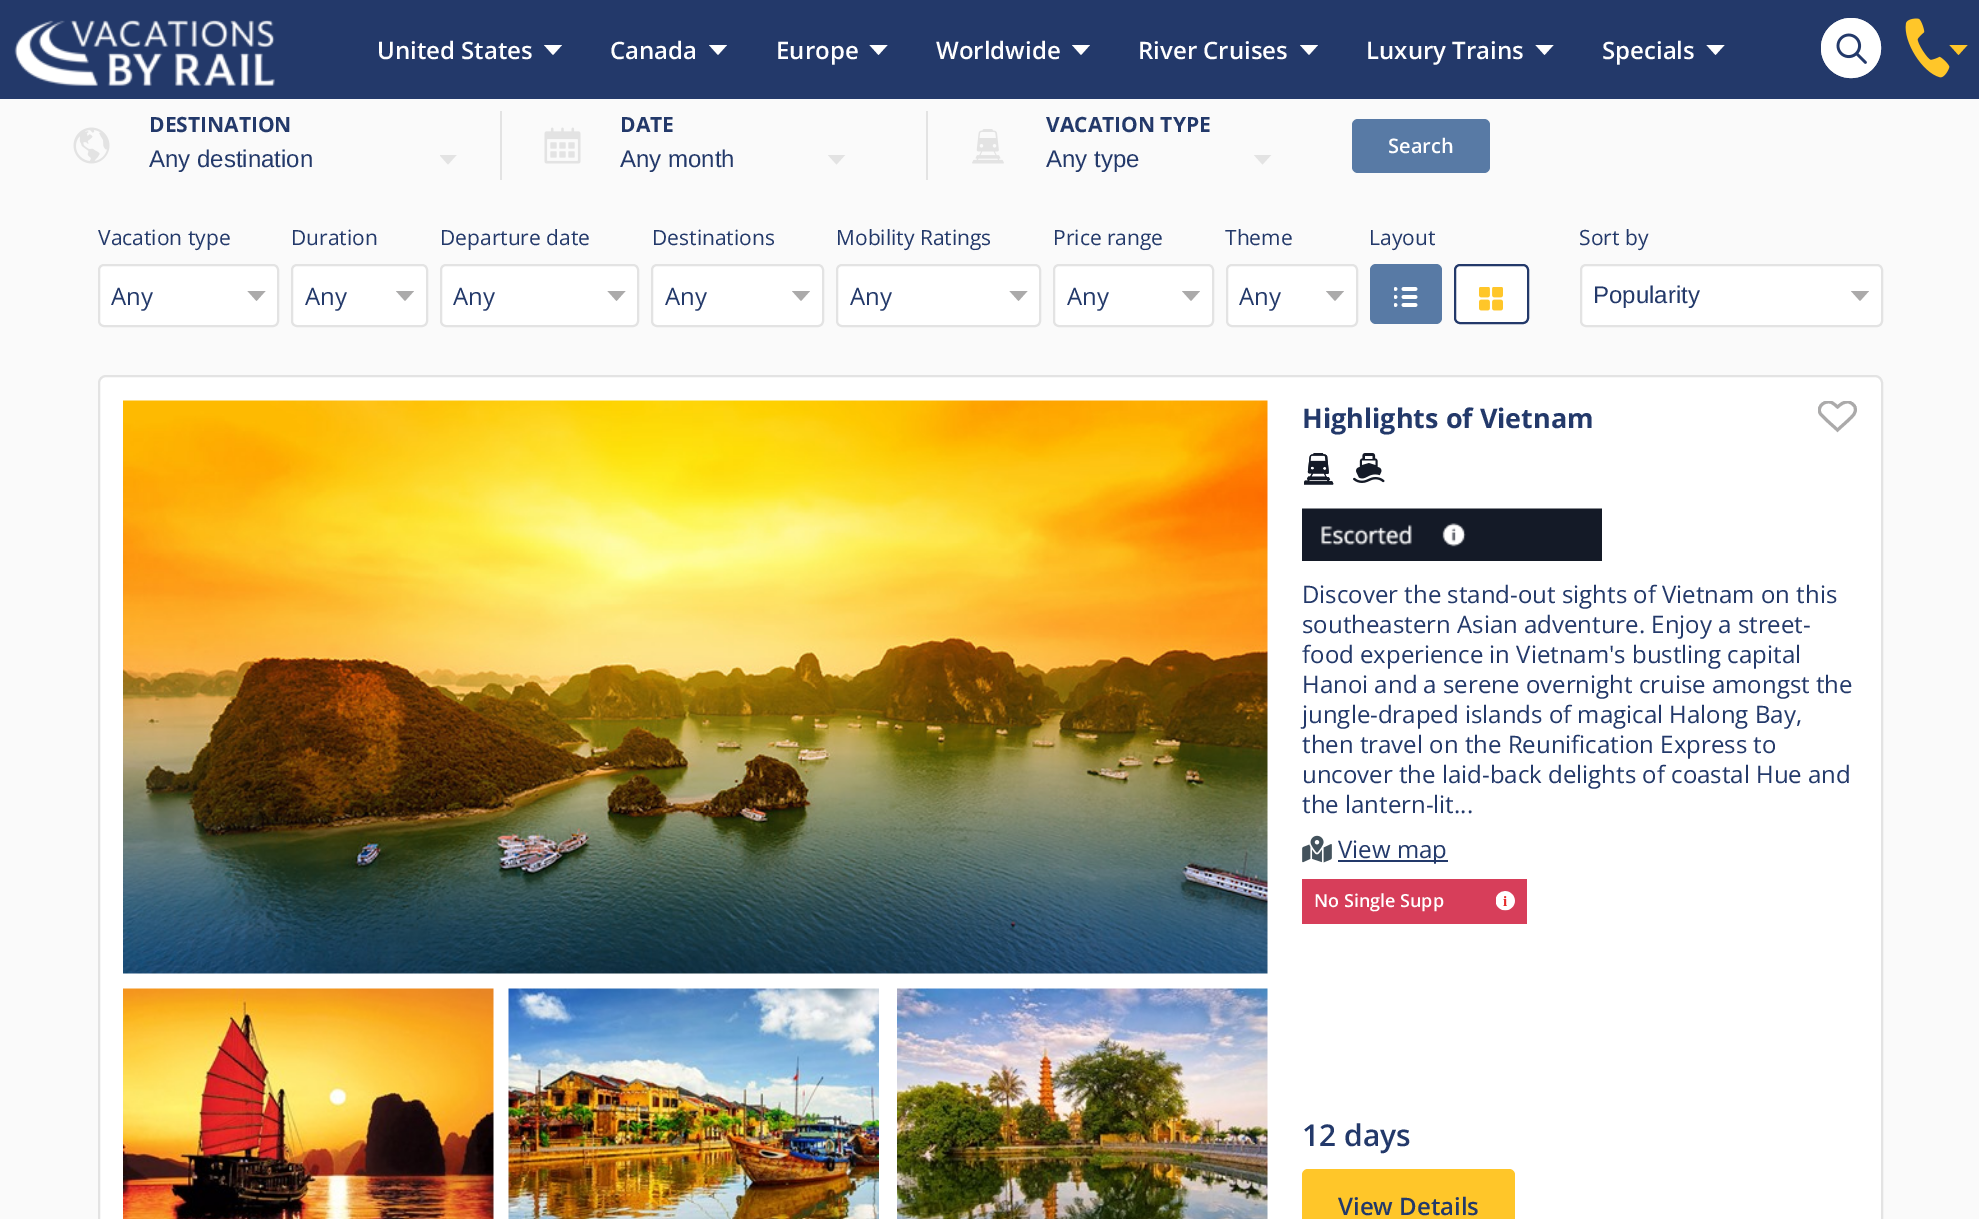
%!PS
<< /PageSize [1979 1219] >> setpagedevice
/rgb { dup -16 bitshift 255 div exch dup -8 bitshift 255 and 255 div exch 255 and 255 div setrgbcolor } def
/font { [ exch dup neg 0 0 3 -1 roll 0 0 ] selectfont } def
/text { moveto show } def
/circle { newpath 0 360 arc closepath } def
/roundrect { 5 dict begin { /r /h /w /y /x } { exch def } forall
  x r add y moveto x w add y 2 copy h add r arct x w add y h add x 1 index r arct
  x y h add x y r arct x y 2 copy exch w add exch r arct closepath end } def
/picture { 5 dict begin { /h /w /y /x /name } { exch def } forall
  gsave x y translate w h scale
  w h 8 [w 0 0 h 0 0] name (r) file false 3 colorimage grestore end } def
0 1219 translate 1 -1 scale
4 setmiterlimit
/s1 { /OpenSans-SemiBold 24 font 16#FFFFFF rgb } def
/s2 { /OpenSans-Bold 21 font 16#23396A rgb } def
/s3 { /LiberationSans-Regular 24 font 16#23396A rgb } def
/s4 { /OpenSans-SemiBold 20 font 16#FFFFFF rgb } def
/s5 { /OpenSans-Regular 21 font 16#23396A rgb } def
/s6 { /OpenSans-Regular 24 font 16#23396A rgb } def
/s7 { /OpenSans-Bold 27 font 16#23396A rgb } def
/s8 { /OpenSans-SemiBold 18 font 16#FFFFFF rgb } def
/s9 { /OpenSans-SemiBold 30 font 16#23396A rgb } def
/s10 { /OpenSans-SemiBold 24 font 16#23396A rgb } def
16#FAFAFA rgb
0 0 1979 1219 rectfill
16#23396A rgb
0 0 1979 99 rectfill
(pic1.raw) 14 20 261 66 picture
16#FFFFFF rgb
553 55 moveto 562 45 lineto 544 45 lineto closepath eofill
s1
(United States) 377 59 text
718 55 moveto 727 45 lineto 709 45 lineto closepath eofill
(Canada) 610 59 text
878.5 55 moveto 887.5 45 lineto 869.5 45 lineto closepath eofill
(Europe) 776 59 text
1081 55 moveto 1090 45 lineto 1072 45 lineto closepath eofill
(Worldwide) 936 59 text
1309 55 moveto 1318 45 lineto 1300 45 lineto closepath eofill
(River Cruises) 1138 59 text
1544.5 55 moveto 1553.5 45 lineto 1535.5 45 lineto closepath eofill
(Luxury Trains) 1366 59 text
1715.5 55 moveto 1724.5 45 lineto 1706.5 45 lineto closepath eofill
(Specials) 1602 59 text
16#E3E3E3 rgb
2 setlinewidth
1851 48 29 circle stroke
16#FFFFFF rgb
1851 48 30 circle fill
(pic2.raw) 1836 33 31 31 picture
(pic3.raw) 1905 18 45 60 picture
16#FFC629 rgb
1958.5 55 moveto 1967.5 45 lineto 1949.5 45 lineto closepath eofill
(pic4.raw) 73 127 37 37 picture
16#E3E3E3 rgb
500 111 2 69 rectfill
s2
(DESTINATION) 149 132 text
gsave
440 155 18 10 rectclip
16#E3E3E3 rgb
448 164.5 moveto 457 154.5 lineto 439 154.5 lineto closepath eofill
grestore
s3
(Any destination) 149 167 text
(pic5.raw) 544 127 37 37 picture
16#E3E3E3 rgb
926 111 2 69 rectfill
s2
(DATE) 620 132 text
gsave
828 155 18 10 rectclip
16#E3E3E3 rgb
836.5 164.5 moveto 845.5 154.5 lineto 827.5 154.5 lineto closepath eofill
grestore
s3
(Any month) 620 167 text
(pic6.raw) 972 129 32 35 picture
s2
(VACATION TYPE) 1046 132 text
gsave
1254 155 18 10 rectclip
16#E3E3E3 rgb
1262.5 164.5 moveto 1271.5 154.5 lineto 1253.5 154.5 lineto closepath eofill
grestore
s3
(Any type) 1046 167 text
16#587AA5 rgb
1352 119 138 54 6 roundrect fill
s4
(Search) 1388 153 text
s5
(Vacation type) 98 245 text
16#FFFFFF rgb
98 264 181 63 6 roundrect fill
16#ABAAAA rgb
256.5 301 moveto 265.5 291 lineto 247.5 291 lineto closepath eofill
16#E3E3E3 rgb
99 265 179 61 5 roundrect stroke
s6
(Any) 111 305 text
s5
(Duration) 291 245 text
16#FFFFFF rgb
291 264 137 63 6 roundrect fill
16#ABAAAA rgb
405 301 moveto 414 291 lineto 396 291 lineto closepath eofill
16#E3E3E3 rgb
292 265 135 61 5 roundrect stroke
s6
(Any) 305 305 text
s5
(Departure date) 440 245 text
16#FFFFFF rgb
440 264 199 63 6 roundrect fill
16#ABAAAA rgb
616.5 301 moveto 625.5 291 lineto 607.5 291 lineto closepath eofill
16#E3E3E3 rgb
441 265 197 61 5 roundrect stroke
s6
(Any) 453 305 text
s5
(Destinations) 652 245 text
16#FFFFFF rgb
651 264 173 63 6 roundrect fill
16#ABAAAA rgb
801 301 moveto 810 291 lineto 792 291 lineto closepath eofill
16#E3E3E3 rgb
652 265 171 61 5 roundrect stroke
s6
(Any) 665 305 text
s5
(Mobility Ratings) 836 245 text
16#FFFFFF rgb
836 264 205 63 6 roundrect fill
16#ABAAAA rgb
1018.5 301 moveto 1027.5 291 lineto 1009.5 291 lineto closepath eofill
16#E3E3E3 rgb
837 265 203 61 5 roundrect stroke
s6
(Any) 850 305 text
s5
(Price range) 1053 245 text
16#FFFFFF rgb
1053 264 161 63 6 roundrect fill
16#ABAAAA rgb
1191 301 moveto 1200 291 lineto 1182 291 lineto closepath eofill
16#E3E3E3 rgb
1054 265 159 61 5 roundrect stroke
s6
(Any) 1067 305 text
s5
(Theme) 1225 245 text
16#FFFFFF rgb
1226 264 132 63 6 roundrect fill
16#ABAAAA rgb
1335 301 moveto 1344 291 lineto 1326 291 lineto closepath eofill
16#E3E3E3 rgb
1227 265 130 61 5 roundrect stroke
s6
(Any) 1239 305 text
s5
(Layout) 1369 245 text
16#587AA5 rgb
1370 264 72 60 6 roundrect fill
(pic7.raw) 1394 287 24 20 picture
16#FFFFFF rgb
1455 265 73 58 5 roundrect gsave fill grestore
16#23396A rgb
stroke
(pic8.raw) 1479 287 24 24 picture
(Sort by) 1579 245 text
16#FFFFFF rgb
1580 264 303 63 6 roundrect fill
16#ABAAAA rgb
1860 301 moveto 1869 291 lineto 1851 291 lineto closepath eofill
16#E3E3E3 rgb
1581 265 301 61 5 roundrect stroke
s3
(Popularity) 1593 303 text
16#FFFFFF rgb
99 376 1783 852 7 roundrect gsave fill grestore
16#E3E3E3 rgb
stroke
(pic9.raw) 123 400 1145 574 picture
(pic10.raw) 123 988 371 231 picture
(pic11.raw) 508 988 371 231 picture
(pic12.raw) 897 988 371 231 picture
s7
(Highlights of Vietnam) 1302 428 text
gsave
1827 401 moveto 1848 401 lineto 1853 401 1857 405 1857 410 curveto 1857 416 lineto 1857 426 1849 434 1839 434 curveto 1836 434 lineto 1826 434 1818 426 1818 416 curveto 1818 410 lineto 1818 405 1822 401 1827 401 curveto closepath clip newpath
16#ABAAAA rgb
3 setlinewidth
1837.5 430 moveto 1848 420.5 lineto 1852 416.5 1858 412.5 1854.5 406 curveto 1853 404 1851 402.5 1848.5 402 curveto 1843.5 401.5 1840.5 404.5 1837.5 407 curveto 1835.5 405.5 1834 403.5 1831.5 402.5 curveto 1825 400 1817 406 1820 413 curveto 1821.5 416 1825 418 1827 420.5 curveto closepath stroke
grestore
(pic13.raw) 1304 453 30 32 picture
(pic14.raw) 1353 453 32 30 picture
(pic15.raw) 1302 508 300 53 picture
s6
(Discover the stand-out sights of Vietnam on this) 1302 603 text
(southeastern Asian adventure. Enjoy a street-) 1302 633 text
(food experience in Vietnam's bustling capital) 1302 663 text
(Hanoi and a serene overnight cruise amongst the) 1302 693 text
(jungle-draped islands of magical Halong Bay,) 1302 723 text
(then travel on the Reunification Express to) 1302 753 text
(uncover the laid-back delights of coastal Hue and) 1302 783 text
(the lantern-lit...) 1302 813 text
(pic16.raw) 1302 835 30 28 picture
1338 860 110 2 rectfill
(View map) 1338 858 text
16#D73E5A rgb
1302 879 225 45 rectfill
(pic17.raw) 1496 891 19 20 picture
s8
(No Single Supp) 1314 907 text
s9
(12 days) 1302 1146 text
16#FFC629 rgb
1302 1169 213 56 6 roundrect fill
s10
(View Details) 1338 1215 text
showpage
